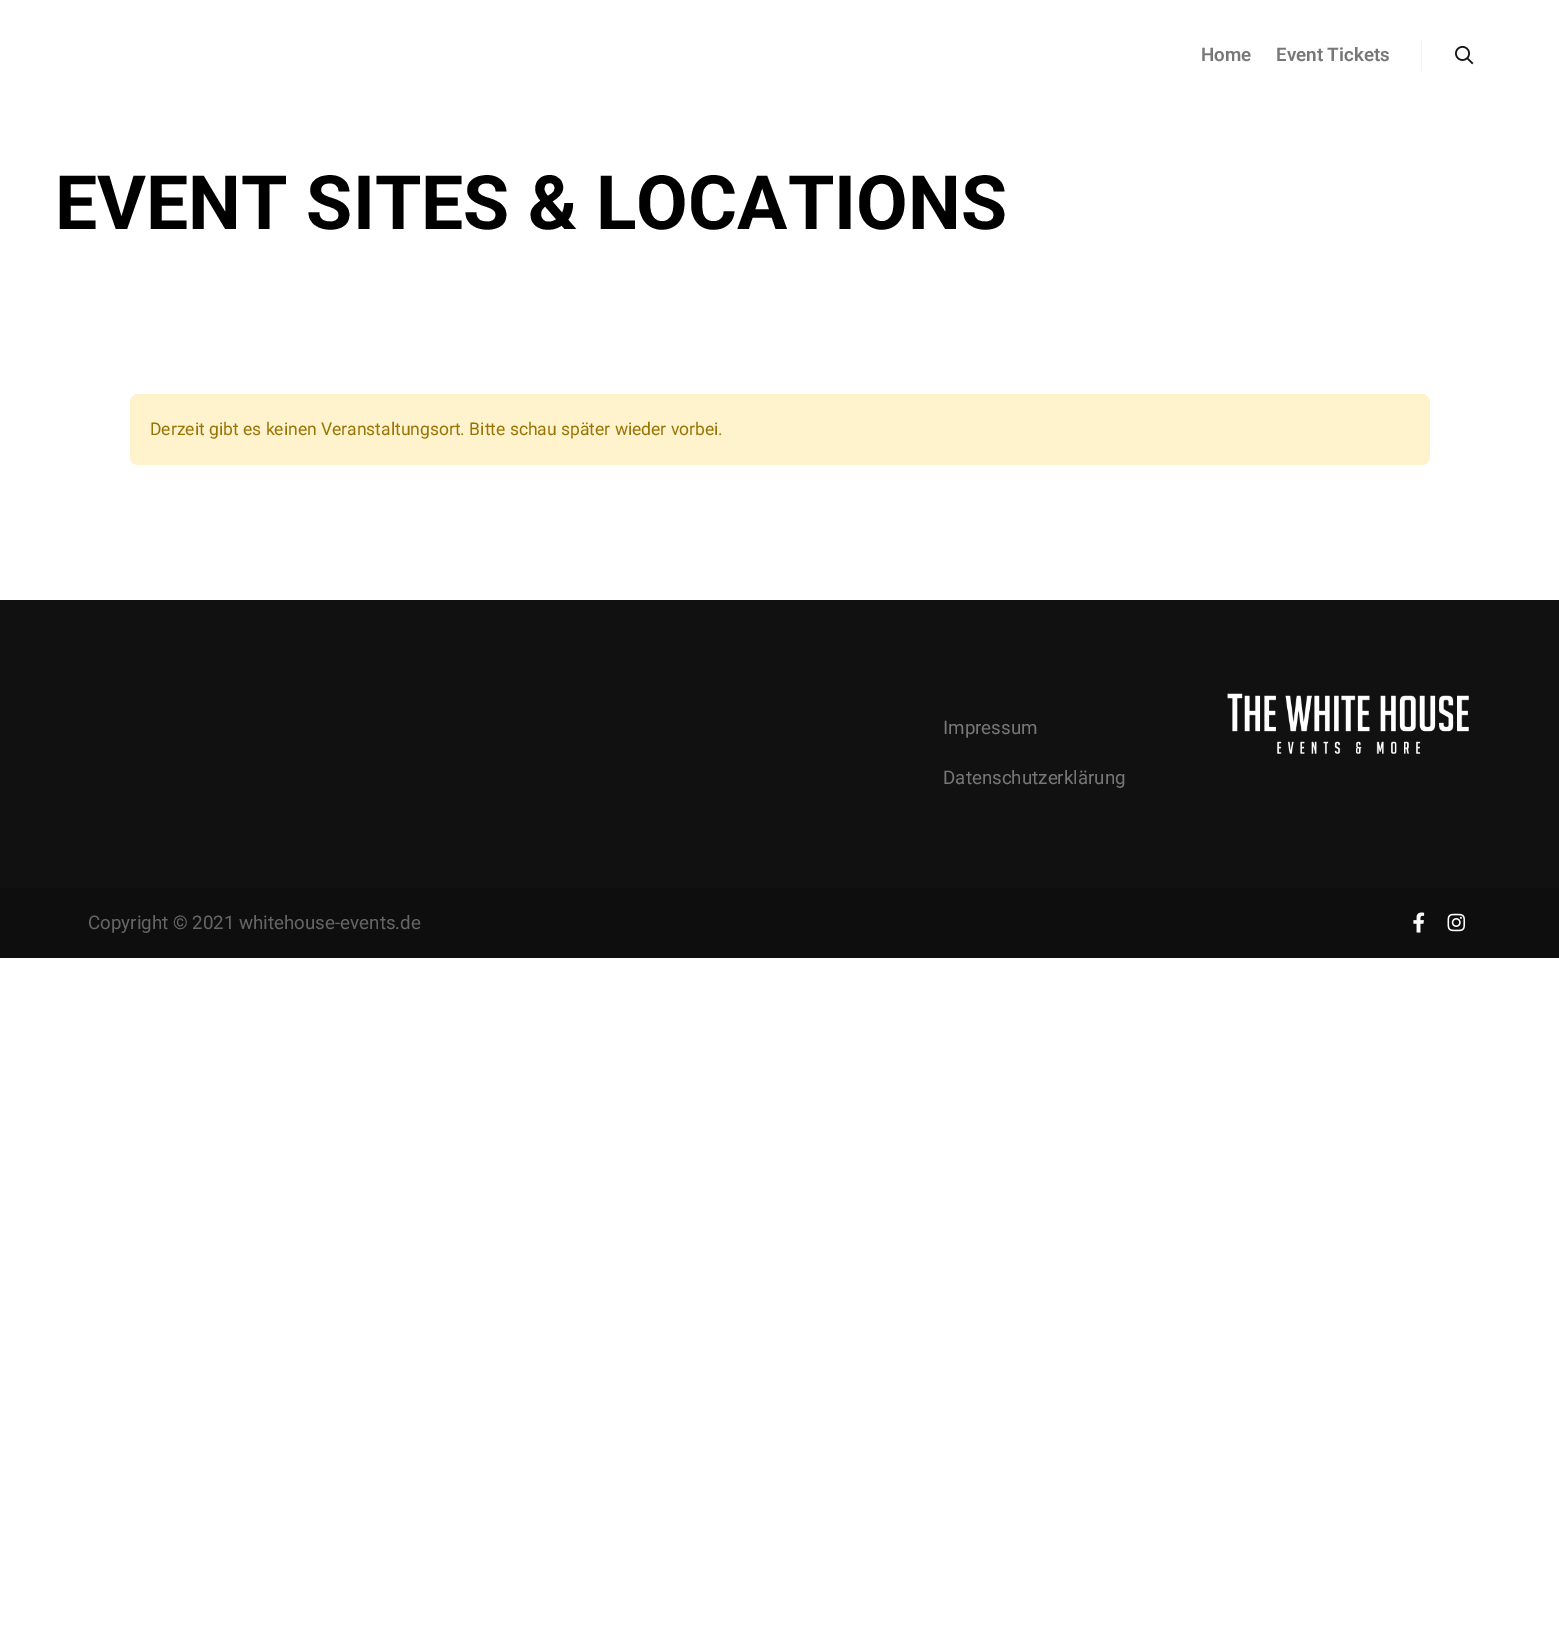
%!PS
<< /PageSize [1559 1633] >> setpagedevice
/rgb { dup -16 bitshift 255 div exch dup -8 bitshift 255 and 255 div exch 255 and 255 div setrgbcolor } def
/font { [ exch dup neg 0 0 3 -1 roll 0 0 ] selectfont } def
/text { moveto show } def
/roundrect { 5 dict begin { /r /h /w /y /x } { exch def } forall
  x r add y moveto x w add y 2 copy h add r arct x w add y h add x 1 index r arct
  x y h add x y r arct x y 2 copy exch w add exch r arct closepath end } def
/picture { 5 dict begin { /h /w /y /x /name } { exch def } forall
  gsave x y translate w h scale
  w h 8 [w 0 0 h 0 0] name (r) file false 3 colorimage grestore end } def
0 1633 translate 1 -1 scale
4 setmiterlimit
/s1 { /Roboto-SemiBold 18.75 font 16#777777 rgb } def
/s2 { /Roboto-Bold 75 font 16#000000 rgb } def
/s3 { /Roboto-Regular 17.5 font 16#997404 rgb } def
/s4 { /Roboto-Regular 18.75 font 16#777777 rgb } def
/s5 { /Roboto-Regular 18.75 font 16#666666 rgb } def
16#FFFFFF rgb
0 0 1559 1633 rectfill
s1
(Home) 1201 61 text
(Event Tickets) 1276 61 text
16#F3F3F3 rgb
1421 40 1 31 rectfill
(pic1.raw) 1455 45 19 20 picture
s2
(EVENT SITES & LOCATIONS) 55 229 text
16#FFF3CD rgb
130 394 1300 71 8 roundrect fill
s3
(Derzeit gibt es keinen Veranstaltungsort. Bitte schau später wieder vorbei.) 150 435 text
16#111111 rgb
0 600 1559 288 rectfill
s4
(Impressum) 943 734 text
(Datenschutzerklärung) 943 784 text
(pic2.raw) 1227 693 242 61 picture
16#0E0E0E rgb
0 888 1559 70 rectfill
s5
(Copyright © 2021 whitehouse-events.de) 88 929 text
(pic3.raw) 1413 912 12 21 picture
(pic4.raw) 1447 913 19 19 picture
showpage
